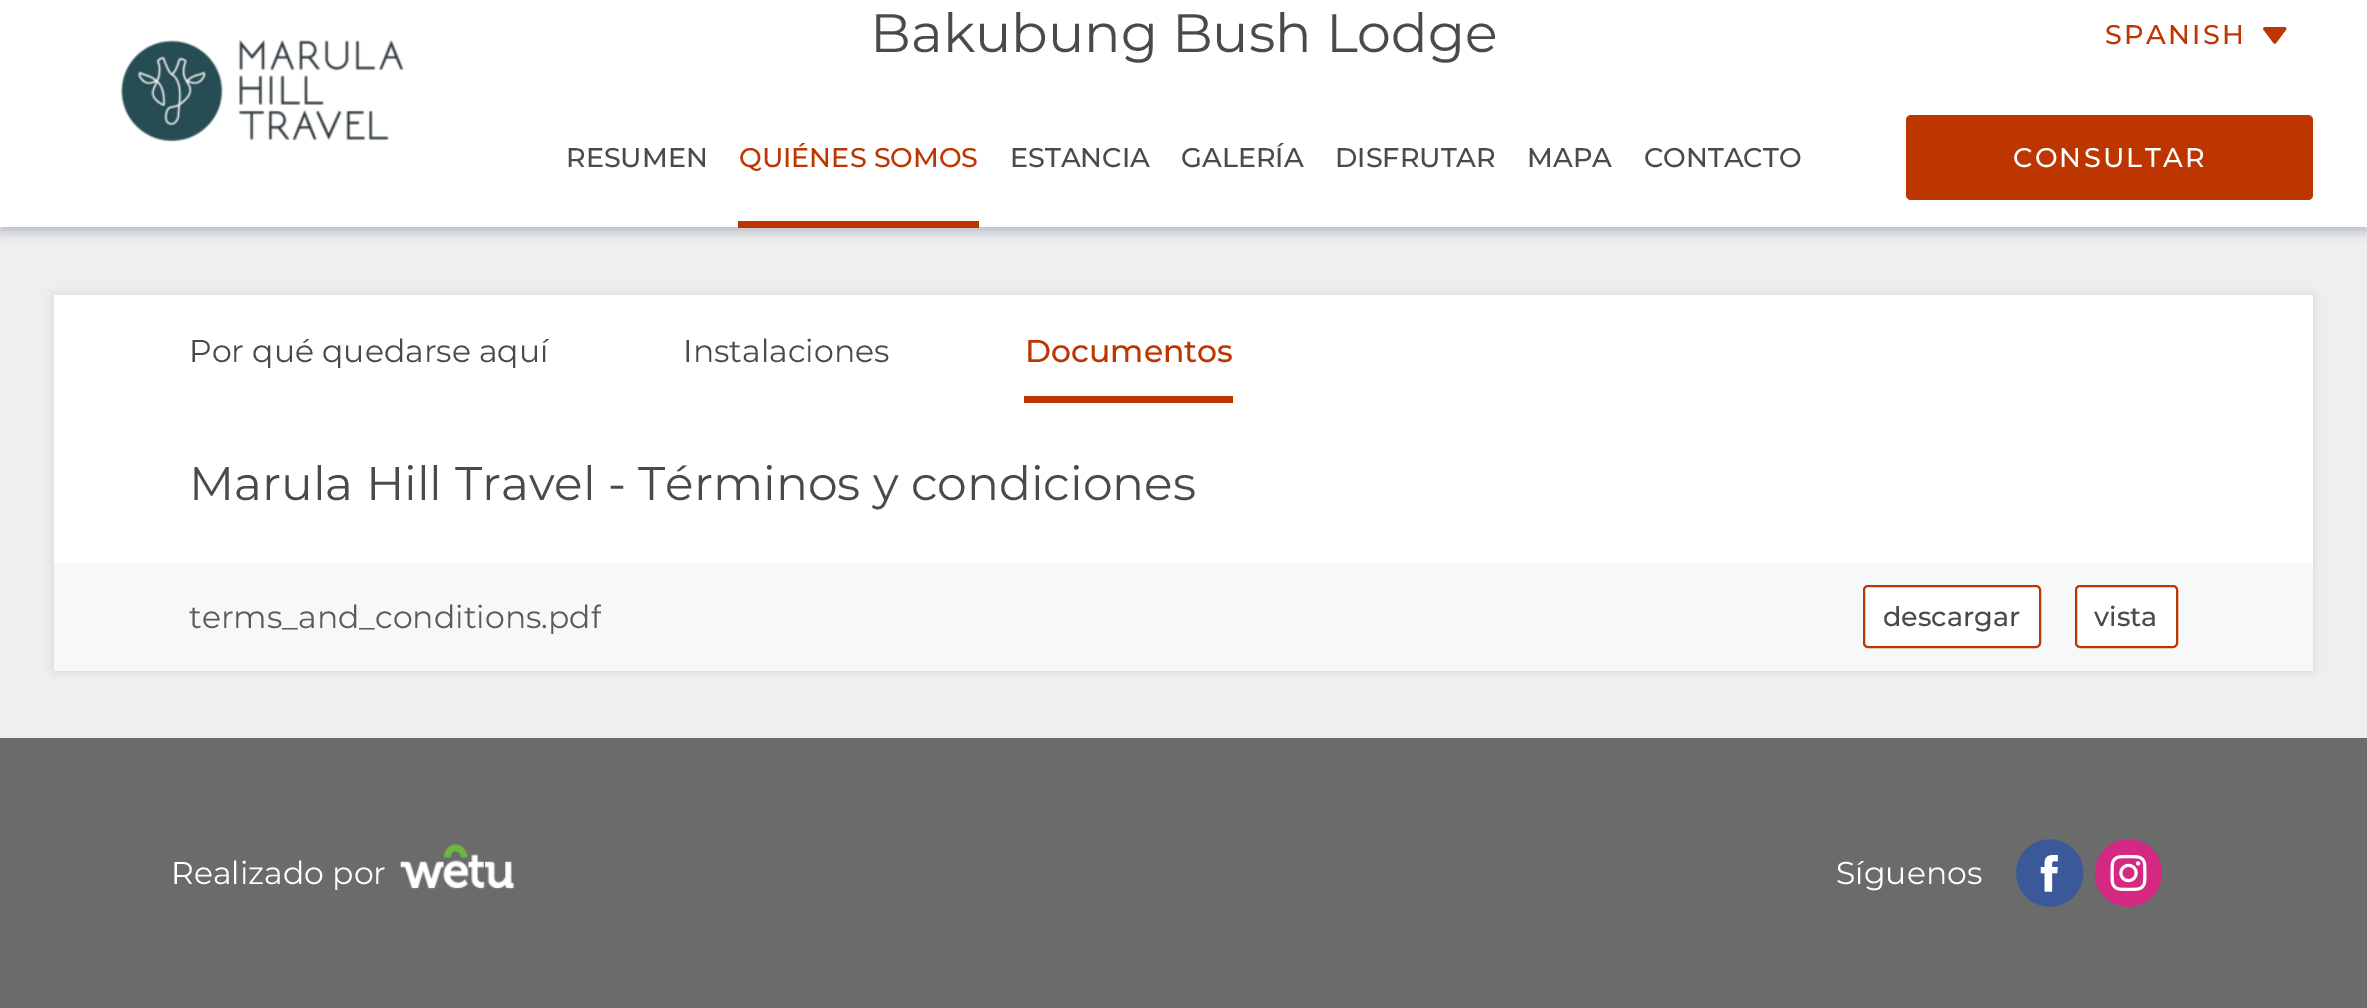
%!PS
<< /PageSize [2367 1008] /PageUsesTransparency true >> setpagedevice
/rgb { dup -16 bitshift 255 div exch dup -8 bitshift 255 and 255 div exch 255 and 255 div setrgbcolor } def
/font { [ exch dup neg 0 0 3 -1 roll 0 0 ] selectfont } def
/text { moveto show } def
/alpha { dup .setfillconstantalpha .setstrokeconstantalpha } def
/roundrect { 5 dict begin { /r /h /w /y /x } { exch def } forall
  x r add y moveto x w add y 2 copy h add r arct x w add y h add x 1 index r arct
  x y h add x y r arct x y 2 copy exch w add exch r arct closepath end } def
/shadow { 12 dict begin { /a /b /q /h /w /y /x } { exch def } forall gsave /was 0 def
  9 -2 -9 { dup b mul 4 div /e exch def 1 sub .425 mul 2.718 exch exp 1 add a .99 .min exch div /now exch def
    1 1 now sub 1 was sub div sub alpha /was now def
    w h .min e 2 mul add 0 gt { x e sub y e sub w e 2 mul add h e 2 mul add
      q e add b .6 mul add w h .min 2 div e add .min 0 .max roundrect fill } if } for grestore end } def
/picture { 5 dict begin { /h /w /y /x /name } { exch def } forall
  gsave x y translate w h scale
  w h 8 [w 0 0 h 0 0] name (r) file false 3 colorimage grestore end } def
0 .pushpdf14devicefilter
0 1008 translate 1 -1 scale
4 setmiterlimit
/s1 { /Montserrat-Regular 54 font 16#4A4A4A rgb } def
/s2 { /Montserrat-Medium 27 font 16#4A4A4A rgb } def
/s3 { /Montserrat-Medium 27 font 16#BD3600 rgb } def
/s4 { /Montserrat-Regular 31.5 font 16#4A4A4A rgb } def
/s5 { /Montserrat-Medium 31.5 font 16#BD3600 rgb } def
/s6 { /Montserrat-Regular 47.25 font 16#4A4A4A rgb } def
/s7 { /Montserrat-Regular 31.5 font 16#5A5A5A rgb } def
/s8 { /Montserrat-Regular 31.5 font 16#FFFFFF rgb } def
16#EFEFEF rgb
0 0 2367 1008 rectfill
16#7F8EA0 rgb
0 -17 2367 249 0 5.5 0.5 shadow
16#FFFFFF rgb
0 0 2367 227 rectfill
(pic1.raw) 120 40 284 103 picture
s1
(Bakubung Bush Lodge) 870 52 text
s2
(RESUMEN) 566 167 text
s3
(QUIÉNES SOMOS) 739 167 text
738 221 241 7 rectfill
s2
(ESTANCIA) 1010 167 text
(GALERÍA) 1181 167 text
(DISFRUTAR) 1335 167 text
(MAPA) 1527 167 text
(CONTACTO) 1644 167 text
16#BD3600 rgb
2105 44 moveto 2.25 0 (SPANISH) ashow
(pic2.raw) 2263 27 24 17 picture
1906 115 407 85 5 roundrect fill
16#FFFFFF rgb
2013 167 moveto 2.25 0 (CONSULTAR) ashow
16#000000 rgb
54 295 2259 376 0 5.5 0.1 shadow
16#FFFFFF rgb
54 295 2259 268 rectfill
s4
(Por qué quedarse aquí) 189 362 text
(Instalaciones) 683 362 text
s5
(Documentos) 1025 362 text
1024 396 209 7 rectfill
s6
(Marula Hill Travel - Términos y condiciones) 189 500 text
16#F7F8FA rgb
54 563 2259 108 rectfill
gsave
189 594 412 45 rectclip
s7
(terms_and_conditions.pdf) 189 628 text
grestore
16#FFFFFF rgb
1864 586 176 61 4 roundrect gsave fill grestore
16#BD3600 rgb
2 setlinewidth
stroke
s2
(descargar) 1883 626 text
16#FFFFFF rgb
2076 586 101 61 4 roundrect gsave fill grestore
16#BD3600 rgb
stroke
s2
(vista) 2094 626 text
16#6B6B6B rgb
0 738 2367 270 rectfill
s8
(Realizado por) 171 884 text
(pic3.raw) 399 844 116 45 picture
(Síguenos) 1836 884 text
(pic4.raw) 2016 839 68 68 picture
(pic5.raw) 2095 839 67 68 picture
.poppdf14devicefilter showpage
